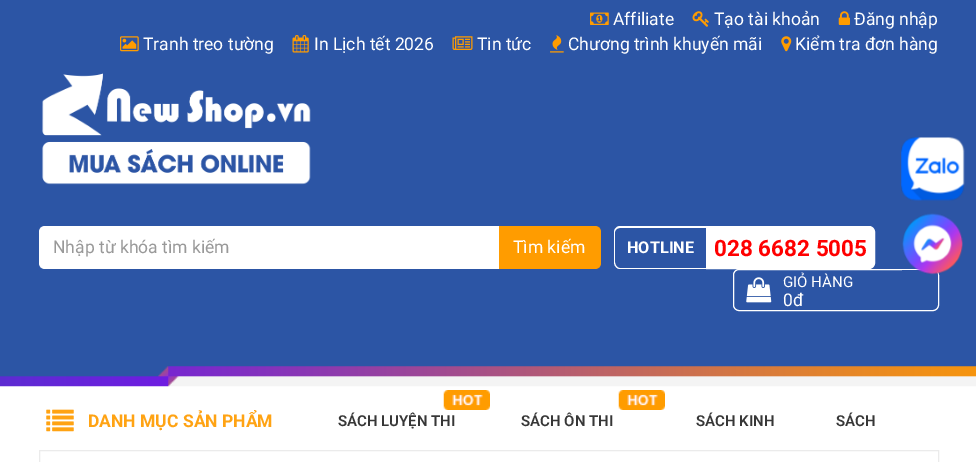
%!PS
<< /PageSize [976 462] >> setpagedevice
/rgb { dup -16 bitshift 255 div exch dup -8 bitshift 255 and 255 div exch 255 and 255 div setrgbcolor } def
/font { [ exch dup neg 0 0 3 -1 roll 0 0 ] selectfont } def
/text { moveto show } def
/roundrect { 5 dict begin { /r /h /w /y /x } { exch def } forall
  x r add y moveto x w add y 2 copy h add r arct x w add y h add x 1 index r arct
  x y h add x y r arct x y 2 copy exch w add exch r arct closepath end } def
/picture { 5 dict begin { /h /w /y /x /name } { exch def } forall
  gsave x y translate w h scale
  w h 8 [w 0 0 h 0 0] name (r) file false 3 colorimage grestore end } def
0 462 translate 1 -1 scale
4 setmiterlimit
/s1 { /Roboto-Regular 17.5 font 16#FFFFFF rgb } def
/s2 { /Roboto-Regular 17.5 font 16#999999 rgb } def
/s3 { /Roboto-Bold 16.25 font 16#FFFFFF rgb } def
/s4 { /Roboto-Bold 22.5 font 16#FF0000 rgb } def
/s5 { /Roboto-Regular 15 font 16#FFFFFF rgb } def
/s6 { /Roboto-Bold 17.5 font 16#FFA313 rgb } def
/s7 { /Roboto-SemiBold 15 font 16#373737 rgb } def
16#FFFFFF rgb
0 0 976 462 rectfill
16#2C55A5 rgb
0 0 976 377 rectfill
(pic1.raw) 590 12 19 13 picture
s1
(Affiliate) 613 25 text
(pic2.raw) 692 11 17 16 picture
(Tạo tài khoản) 714 25 text
(pic3.raw) 838 11 12 14 picture
(Đăng nhập) 854 25 text
(pic4.raw) 120 36 19 16 picture
(Tranh treo tường) 143 50 text
(pic5.raw) 292 35 17 18 picture
(In Lịch tết 2026) 314 50 text
(pic6.raw) 452 36 21 14 picture
(Tin tức) 477 50 text
(pic7.raw) 550 35 14 18 picture
(Chương trình khuyến mãi) 568 50 text
(pic8.raw) 781 36 11 16 picture
(Kiểm tra đơn hàng) 795 50 text
(pic9.raw) 0 366 976 21 picture
(pic10.raw) 42 73 269 112 picture
45 226 moveto 500 226 lineto 500 269 lineto 45 269 lineto 41.5 269 39 266.5 39 263 curveto 39 232 lineto 39 228.5 41.5 226 45 226 curveto closepath fill
s2
(Nhập từ khóa tìm kiếm) 53 253 text
16#FF9C00 rgb
499 226 moveto 595 226 lineto 598.5 226 601 228.5 601 232 curveto 601 263 lineto 601 266.5 598.5 269 595 269 curveto 499 269 lineto closepath fill
s1
(Tìm kiếm) 513 253 text
620 226 moveto 706 226 lineto 706 269 lineto 620 269 lineto 617 269 614 266 614 262 curveto 614 232 lineto 614 229 617 226 620 226 curveto closepath 620 228 moveto 706 228 lineto 706 268 lineto 620 268 lineto 617 268 615 265 615 262 curveto 615 232 lineto 615 230 617 228 620 228 curveto closepath eofill
s3
(HOTLINE) 627 253 text
706.5 226.5 moveto 869 226.5 lineto 872 226.5 874.5 229 874.5 232 curveto 874.5 263 lineto 874.5 266 872 268.5 869 268.5 curveto 706.5 268.5 lineto closepath gsave fill grestore
stroke
s4
(028 6682 5005) 714 256 text
16#FFFFFF rgb
733.5 269.5 205 41 5.5 roundrect stroke
(pic11.raw) 746 277 26 26 picture
s5
(GIỎ HÀNG) 783 287 text
s1
(0đ) 783 306 text
(pic12.raw) 46 409 28 23 picture
s6
(DANH MỤC SẢN PHẨM) 88 427 text
(pic13.raw) 443 390 47 20 picture
s7
(SÁCH LUYỆN THI) 338 426 text
(pic13.raw) 618 390 47 20 picture
(SÁCH ÔN THI) 521 426 text
(SÁCH KINH) 696 426 text
(SÁCH) 836 426 text
(pic14.raw) 901 137 64 64 picture
(pic15.raw) 902 213 61 62 picture
16#EBEBEB rgb
39.5 450.5 899 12 rectstroke
showpage
